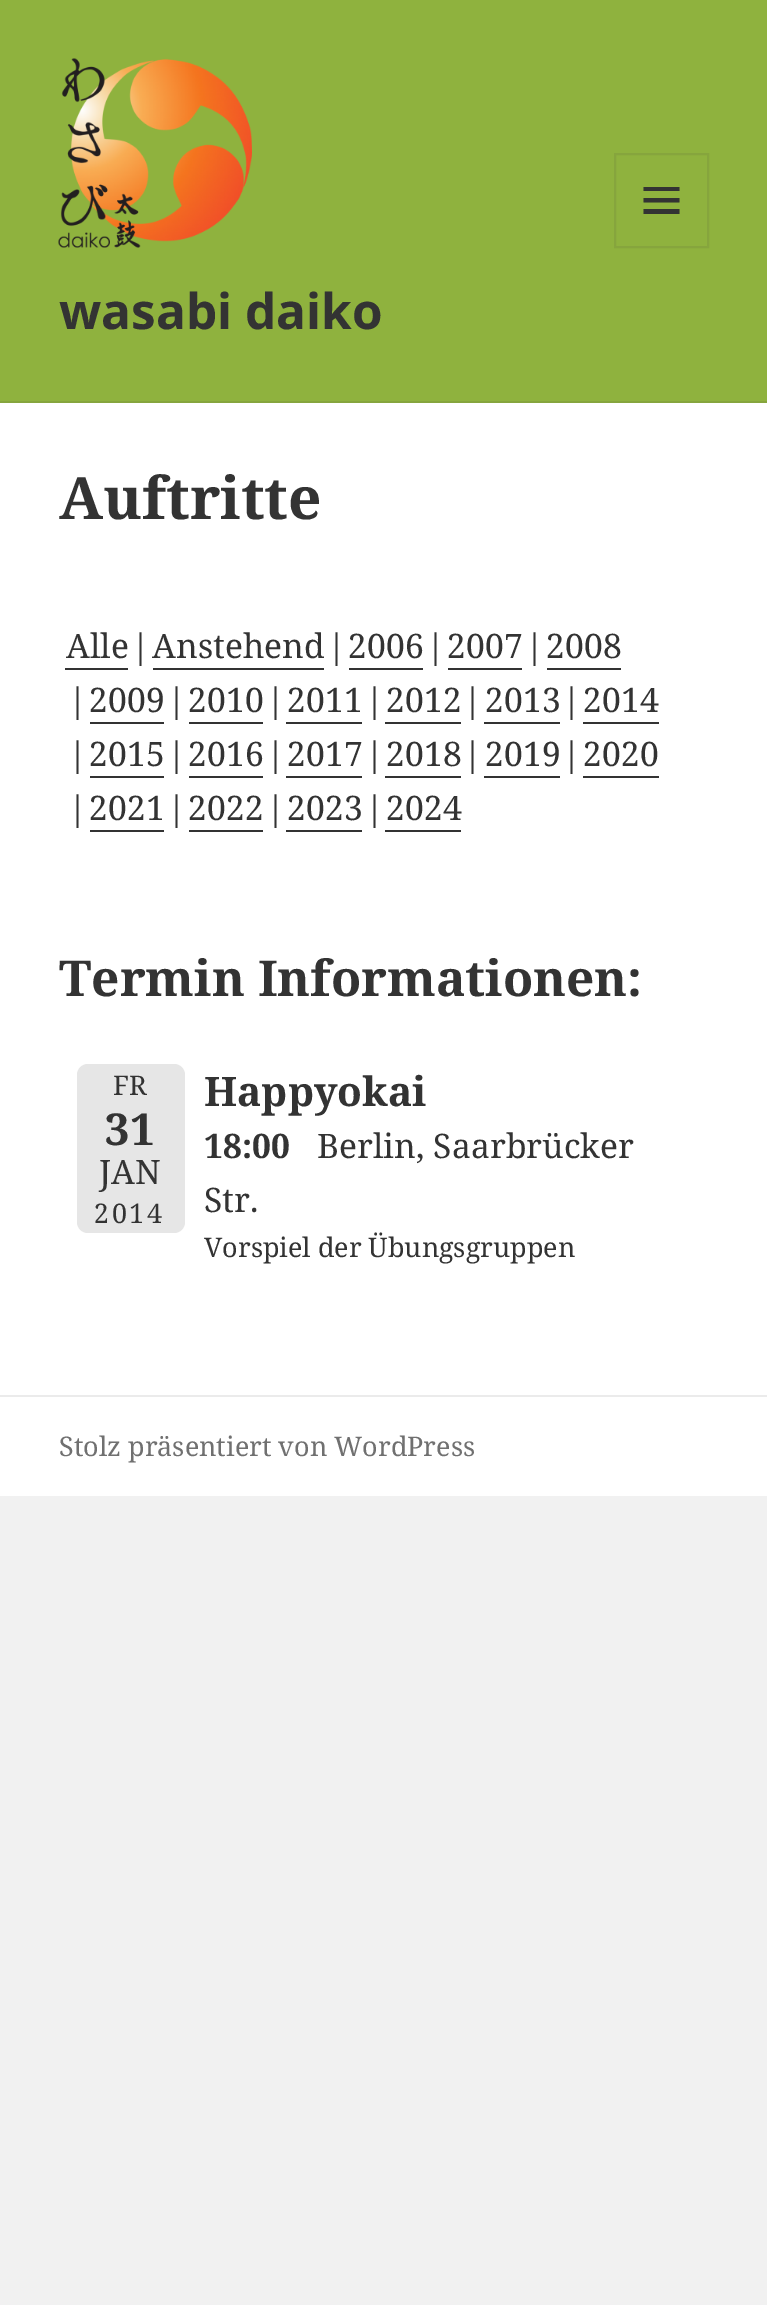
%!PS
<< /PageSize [767 2305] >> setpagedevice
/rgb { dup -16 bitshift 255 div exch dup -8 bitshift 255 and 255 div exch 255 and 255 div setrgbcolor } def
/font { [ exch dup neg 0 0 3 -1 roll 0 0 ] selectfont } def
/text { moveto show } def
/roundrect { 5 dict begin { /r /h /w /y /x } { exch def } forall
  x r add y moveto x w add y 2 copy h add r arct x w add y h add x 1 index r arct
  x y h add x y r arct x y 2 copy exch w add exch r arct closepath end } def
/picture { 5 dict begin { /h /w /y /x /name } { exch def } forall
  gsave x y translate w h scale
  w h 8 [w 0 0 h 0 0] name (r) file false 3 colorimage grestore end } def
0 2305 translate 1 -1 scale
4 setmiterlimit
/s1 { /NotoSans-Bold 49.5 font 16#333333 rgb } def
/s2 { /NotoSerif-Bold 58.5 font 16#333333 rgb } def
/s3 { /NotoSerif-Regular 33.75 font 16#333333 rgb } def
/s4 { /NotoSerif-Bold 49.5 font 16#333333 rgb } def
/s5 { /NotoSerif-Regular 27 font 16#333333 rgb } def
/s6 { /NotoSerif-Bold 44 font 16#333333 rgb } def
/s7 { /NotoSerif-Bold 40.5 font 16#333333 rgb } def
/s8 { /NotoSerif-Bold 33.75 font 16#333333 rgb } def
/s9 { /NotoSerif-Regular 27 font 16#707070 rgb } def
16#F1F1F1 rgb
0 0 767 2305 rectfill
16#8FB23E rgb
0 0 767 401 rectfill
16#86A53D rgb
0 401 767 2 rectfill
(pic1.raw) 58 58 194 190 picture
2 setlinewidth
615 154 93 93 rectstroke
16#333333 rgb
643.5 214 moveto 643.5 209 lineto 679.5 209 lineto 679.5 214 lineto closepath 643.5 187 moveto 679.5 187 lineto 679.5 191 lineto 643.5 191 lineto closepath 643.5 202.5 moveto 643.5 198 lineto 679.5 198 lineto 679.5 202.5 lineto closepath fill
s1
(wasabi daiko) 59 329 text
16#FFFFFF rgb
0 403 767 992 rectfill
s2
(Auftritte) 59 519 text
s3
(Alle) 66 658 text
65 668 63 2 rectfill
(|) 131 658 text
(Anstehend) 152 658 text
153 668 171 2 rectfill
(|) 327 658 text
(2006) 348 658 text
349 668 74 2 rectfill
(|) 426 658 text
(2007) 447 658 text
448 668 74 2 rectfill
(|) 525 658 text
(2008) 546 658 text
547 668 74 2 rectfill
(|) 68 712 text
(2009) 89 712 text
90 722 74 2 rectfill
(|) 167 712 text
(2010) 188 712 text
189 722 74 2 rectfill
(|) 266 712 text
(2011) 287 712 text
286 722 76 2 rectfill
(|) 365 712 text
(2012) 386 712 text
385 722 76 2 rectfill
(|) 463 712 text
(2013) 485 712 text
484 722 76 2 rectfill
(|) 562 712 text
(2014) 583 712 text
583 722 76 2 rectfill
(|) 68 766 text
(2015) 89 766 text
90 776 74 2 rectfill
(|) 167 766 text
(2016) 188 766 text
189 776 74 2 rectfill
(|) 266 766 text
(2017) 287 766 text
286 776 76 2 rectfill
(|) 365 766 text
(2018) 386 766 text
385 776 76 2 rectfill
(|) 463 766 text
(2019) 485 766 text
484 776 76 2 rectfill
(|) 562 766 text
(2020) 583 766 text
583 776 76 2 rectfill
(|) 68 820 text
(2021) 89 820 text
90 830 74 2 rectfill
(|) 167 820 text
(2022) 188 820 text
189 830 74 2 rectfill
(|) 266 820 text
(2023) 287 820 text
286 830 76 2 rectfill
(|) 365 820 text
(2024) 386 820 text
385 830 76 2 rectfill
s4
(Termin Informationen:) 59 996 text
16#E6E6E6 rgb
77 1064 108 169 11 roundrect fill
s5
(FR) 113 1095 text
s6
(31) 105 1145 text
s3
(JAN) 99 1184 text
/NotoSerif-Regular 27 font
94 1223 moveto 2.5 0 (2014) ashow
s7
(Happyokai) 204 1106 text
s8
(18:00) 204 1158 text
s3
(Berlin, Saarbrücker) 317 1158 text
(Str.) 204 1212 text
s5
(Vorspiel der Übungsgruppen) 204 1257 text
16#FFFFFF rgb
0 1397 767 99 rectfill
16#EBEBEB rgb
0 1395 767 2 rectfill
s9
(Stolz präsentiert von WordPress) 59 1456 text
showpage
